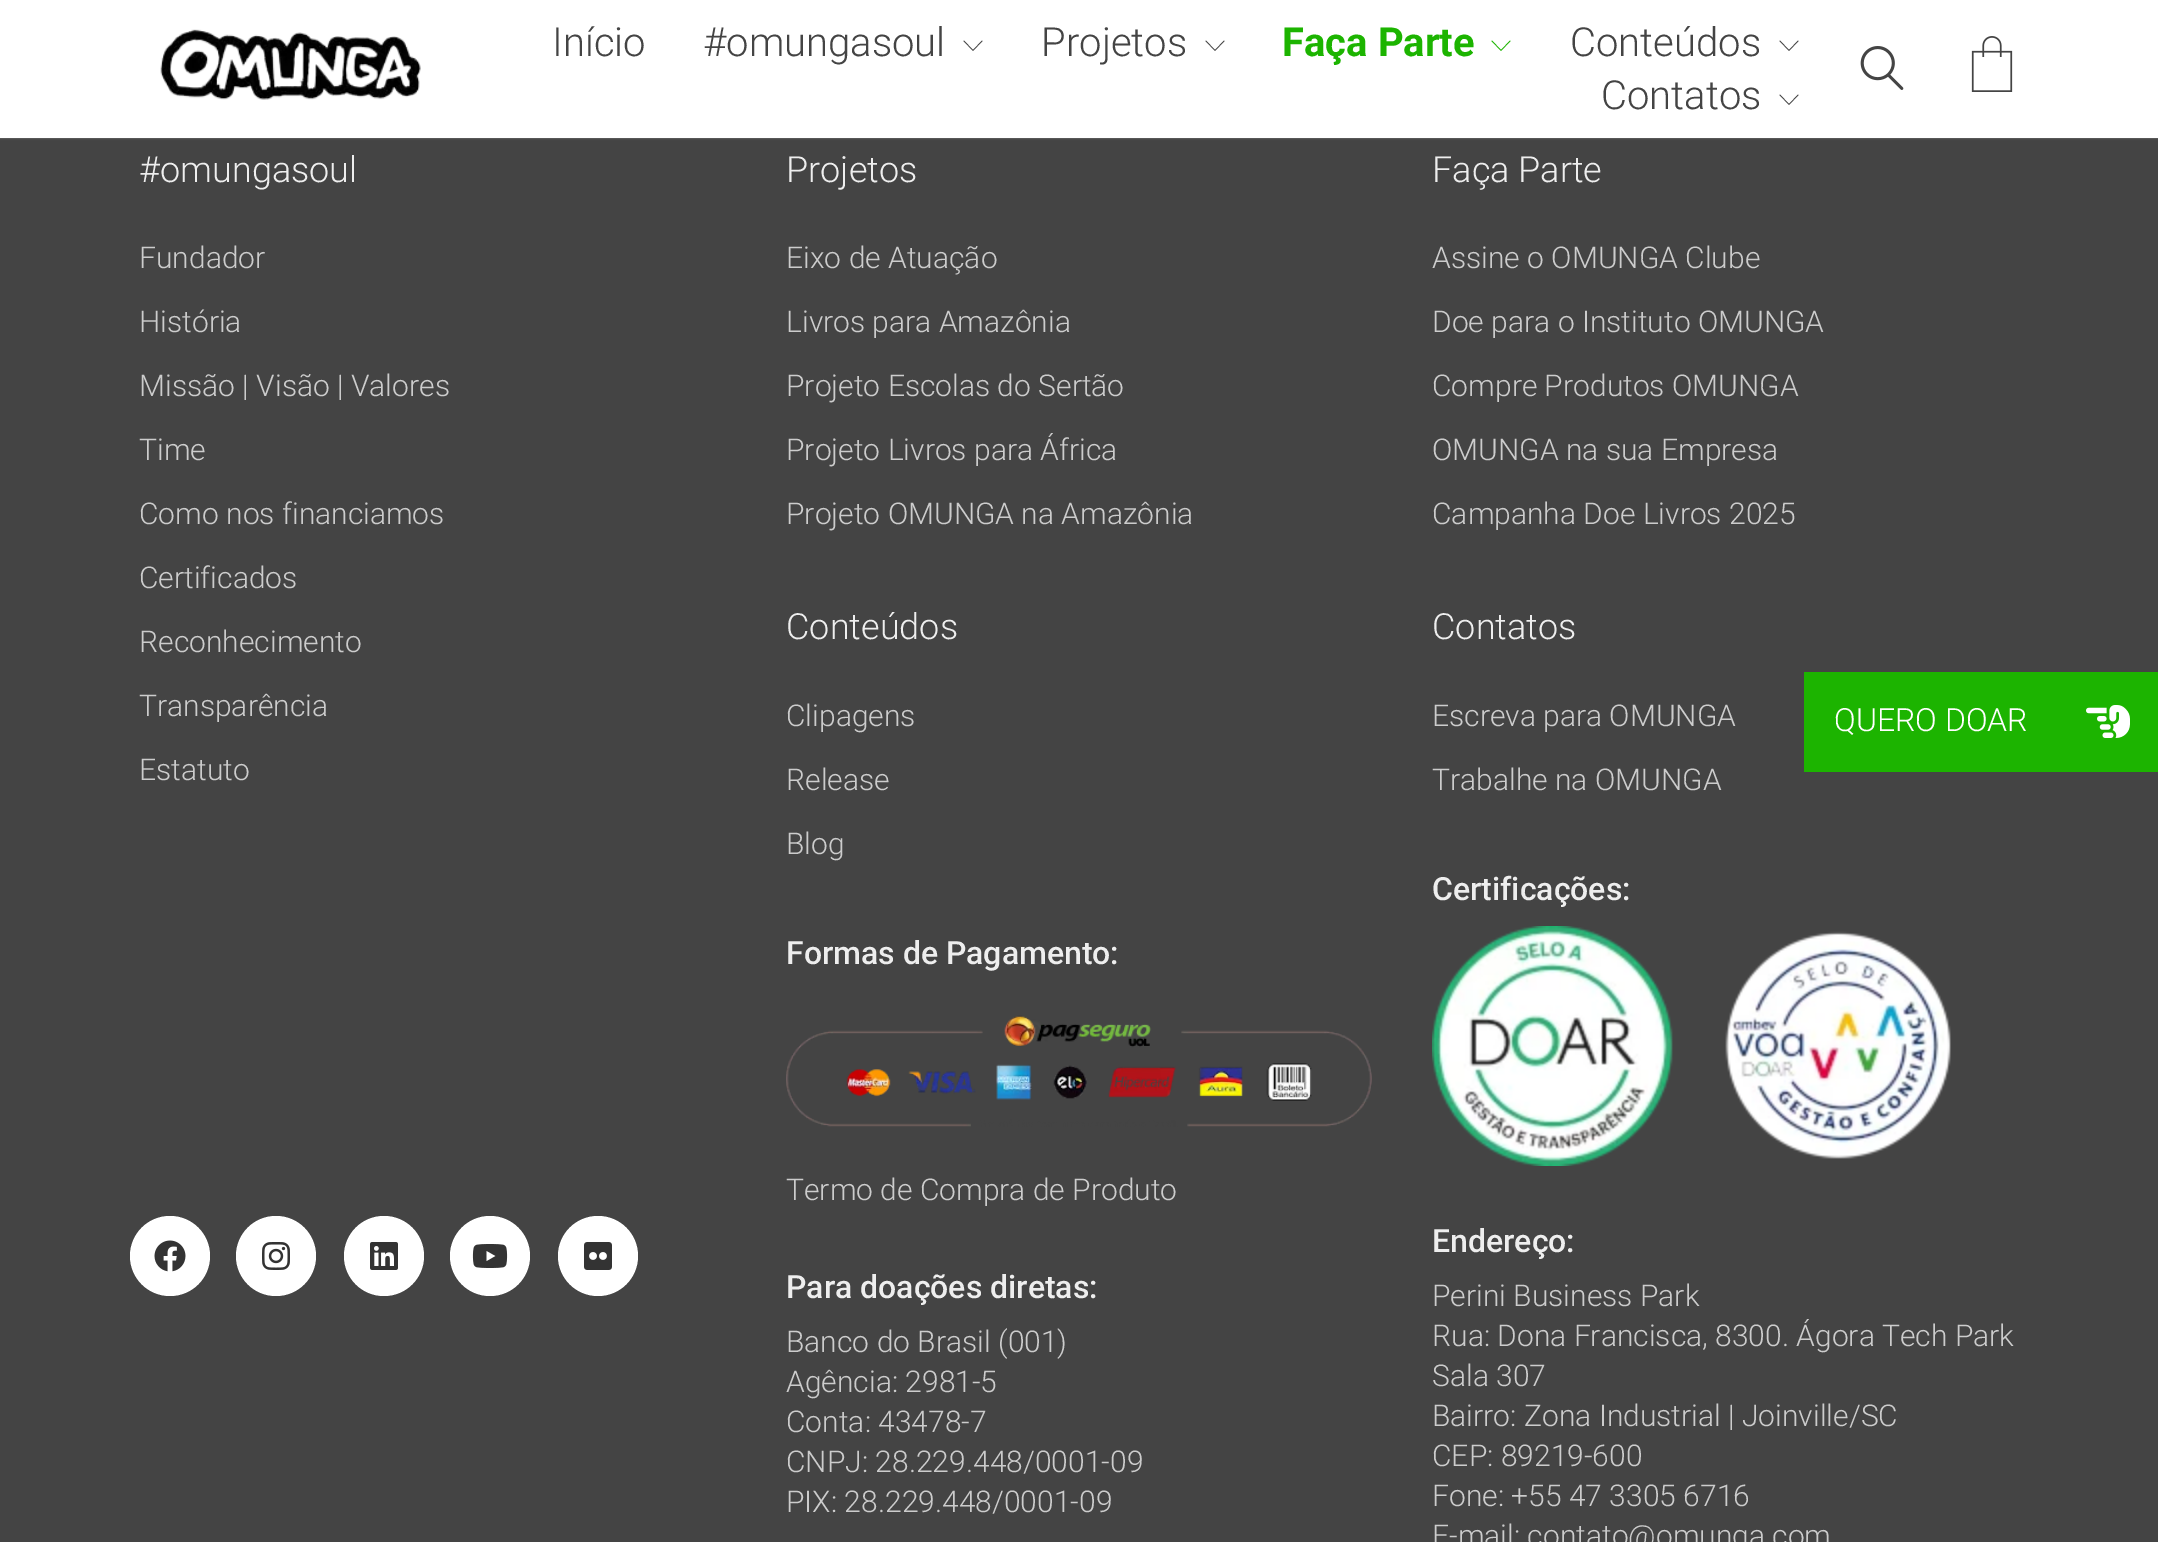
%!PS
<< /PageSize [2158 1542] /PageUsesTransparency true >> setpagedevice
/rgb { dup -16 bitshift 255 div exch dup -8 bitshift 255 and 255 div exch 255 and 255 div setrgbcolor } def
/font { [ exch dup neg 0 0 3 -1 roll 0 0 ] selectfont } def
/text { moveto show } def
/alpha { dup .setfillconstantalpha .setstrokeconstantalpha } def
/circle { newpath 0 360 arc closepath } def
/roundrect { 5 dict begin { /r /h /w /y /x } { exch def } forall
  x r add y moveto x w add y 2 copy h add r arct x w add y h add x 1 index r arct
  x y h add x y r arct x y 2 copy exch w add exch r arct closepath end } def
/shadow { 12 dict begin { /a /b /q /h /w /y /x } { exch def } forall gsave /was 0 def
  9 -2 -9 { dup b mul 4 div /e exch def 1 sub .425 mul 2.718 exch exp 1 add a .99 .min exch div /now exch def
    1 1 now sub 1 was sub div sub alpha /was now def
    w h .min e 2 mul add 0 gt { x e sub y e sub w e 2 mul add h e 2 mul add
      q e add b .6 mul add w h .min 2 div e add .min 0 .max roundrect fill } if } for grestore end } def
/picture { 5 dict begin { /h /w /y /x /name } { exch def } forall
  gsave x y translate w h scale
  w h 8 [w 0 0 h 0 0] name (r) file false 3 colorimage grestore end } def
0 .pushpdf14devicefilter
0 1542 translate 1 -1 scale
4 setmiterlimit
/s1 { /Roboto-Light 40 font 16#444444 rgb } def
/s2 { /Roboto-Bold 40 font 16#1CB400 rgb } def
/s3 { /Roboto-Light 36 font 16#EEEEEE rgb } def
/s4 { /Roboto-Light 30 font 16#CCCCCC rgb } def
/s5 { /Roboto-Medium 32 font 16#EEEEEE rgb } def
/s6 { /Roboto-Light 32 font 16#FFFFFF rgb } def
16#444444 rgb
0 0 2158 1542 rectfill
16#848484 rgb
0 0 2158 138 0 1 1 shadow
16#FFFFFF rgb
0 0 2158 138 rectfill
(pic1.raw) 160 29 261 71 picture
s1
(Início) 552 56 text
(#omungasoul) 703 56 text
973 51 moveto 963.5 41 lineto 964 40.5 lineto 973 50 lineto 982 40.5 lineto 982.5 41 lineto closepath fill
(Projetos) 1041 56 text
1215 51 moveto 1205.5 41 lineto 1206 40.5 lineto 1215 50 lineto 1224 40.5 lineto 1224.5 41 lineto closepath fill
s2
(Faça Parte) 1282 56 text
1501 51 moveto 1491.5 41 lineto 1492 40.5 lineto 1501 50 lineto 1510 40.5 lineto 1510.5 41 lineto closepath fill
s1
(Conteúdos) 1570 56 text
1789 51 moveto 1779.5 41 lineto 1780 40.5 lineto 1789 50 lineto 1798 40.5 lineto 1798.5 41 lineto closepath fill
(Contatos) 1601 109 text
1789 105 moveto 1779.5 95 lineto 1780 94.5 lineto 1789 104 lineto 1798 94.5 lineto 1798.5 95 lineto closepath fill
(pic2.raw) 1860 46 44 44 picture
(pic3.raw) 1971 36 42 56 picture
s3
(#omungasoul) 139 182 text
s4
(Fundador) 139 268 text
(História) 139 332 text
(Missão | Visão | Valores) 139 396 text
(Time) 139 460 text
(Como nos financiamos) 139 524 text
(Certificados) 139 588 text
(Reconhecimento) 139 652 text
(Transparência) 139 716 text
(Estatuto) 139 780 text
16#FFFFFF rgb
170 1256 40 circle fill
(pic4.raw) 154 1240 32 32 picture
276 1256 40 circle fill
(pic5.raw) 262 1242 28 28 picture
384 1256 40 circle fill
(pic6.raw) 370 1242 28 28 picture
490 1256 40 circle fill
(pic7.raw) 472 1244 36 24 picture
598 1256 40 circle fill
(pic8.raw) 584 1242 28 28 picture
s3
(Projetos) 786 182 text
s4
(Eixo de Atuação) 786 268 text
(Livros para Amazônia) 786 332 text
(Projeto Escolas do Sertão) 786 396 text
(Projeto Livros para África) 786 460 text
(Projeto OMUNGA na Amazônia) 786 524 text
s3
(Conteúdos) 786 639 text
s4
(Clipagens) 786 726 text
(Release) 786 790 text
(Blog) 786 854 text
s5
(Formas de Pagamento:) 786 964 text
(pic9.raw) 786 1015 586 112 picture
s4
(Termo de Compra de Produto) 786 1200 text
s5
(Para doações diretas:) 786 1298 text
s4
(Banco do Brasil \(001\)) 786 1352 text
(Agência: 2981-5) 786 1392 text
(Conta: 43478-7) 786 1432 text
(CNPJ: 28.229.448/0001-09) 786 1472 text
(PIX: 28.229.448/0001-09) 786 1512 text
s3
(Faça Parte) 1432 182 text
s4
(Assine o OMUNGA Clube) 1432 268 text
(Doe para o Instituto OMUNGA) 1432 332 text
(Compre Produtos OMUNGA) 1432 396 text
(OMUNGA na sua Empresa) 1432 460 text
(Campanha Doe Livros 2025) 1432 524 text
s3
(Contatos) 1432 639 text
s4
(Escreva para OMUNGA) 1432 726 text
(Trabalhe na OMUNGA) 1432 790 text
s5
(Certificações:) 1432 900 text
(pic10.raw) 1432 926 519 240 picture
(Endereço:) 1432 1252 text
s4
(Perini Business Park) 1432 1306 text
(Rua: Dona Francisca, 8300. Ágora Tech Park) 1432 1346 text
(Sala 307) 1432 1386 text
(Bairro: Zona Industrial | Joinville/SC) 1432 1426 text
(CEP: 89219-600) 1432 1466 text
(Fone: +55 47 3305 6716) 1432 1506 text
(E-mail: contato@omunga.com) 1432 1546 text
16#1CB400 rgb
1804 672 354 100 rectfill
s6
(QUERO DOAR) 1834 731 text
(pic11.raw) 2086 705 44 33 picture
.poppdf14devicefilter showpage
